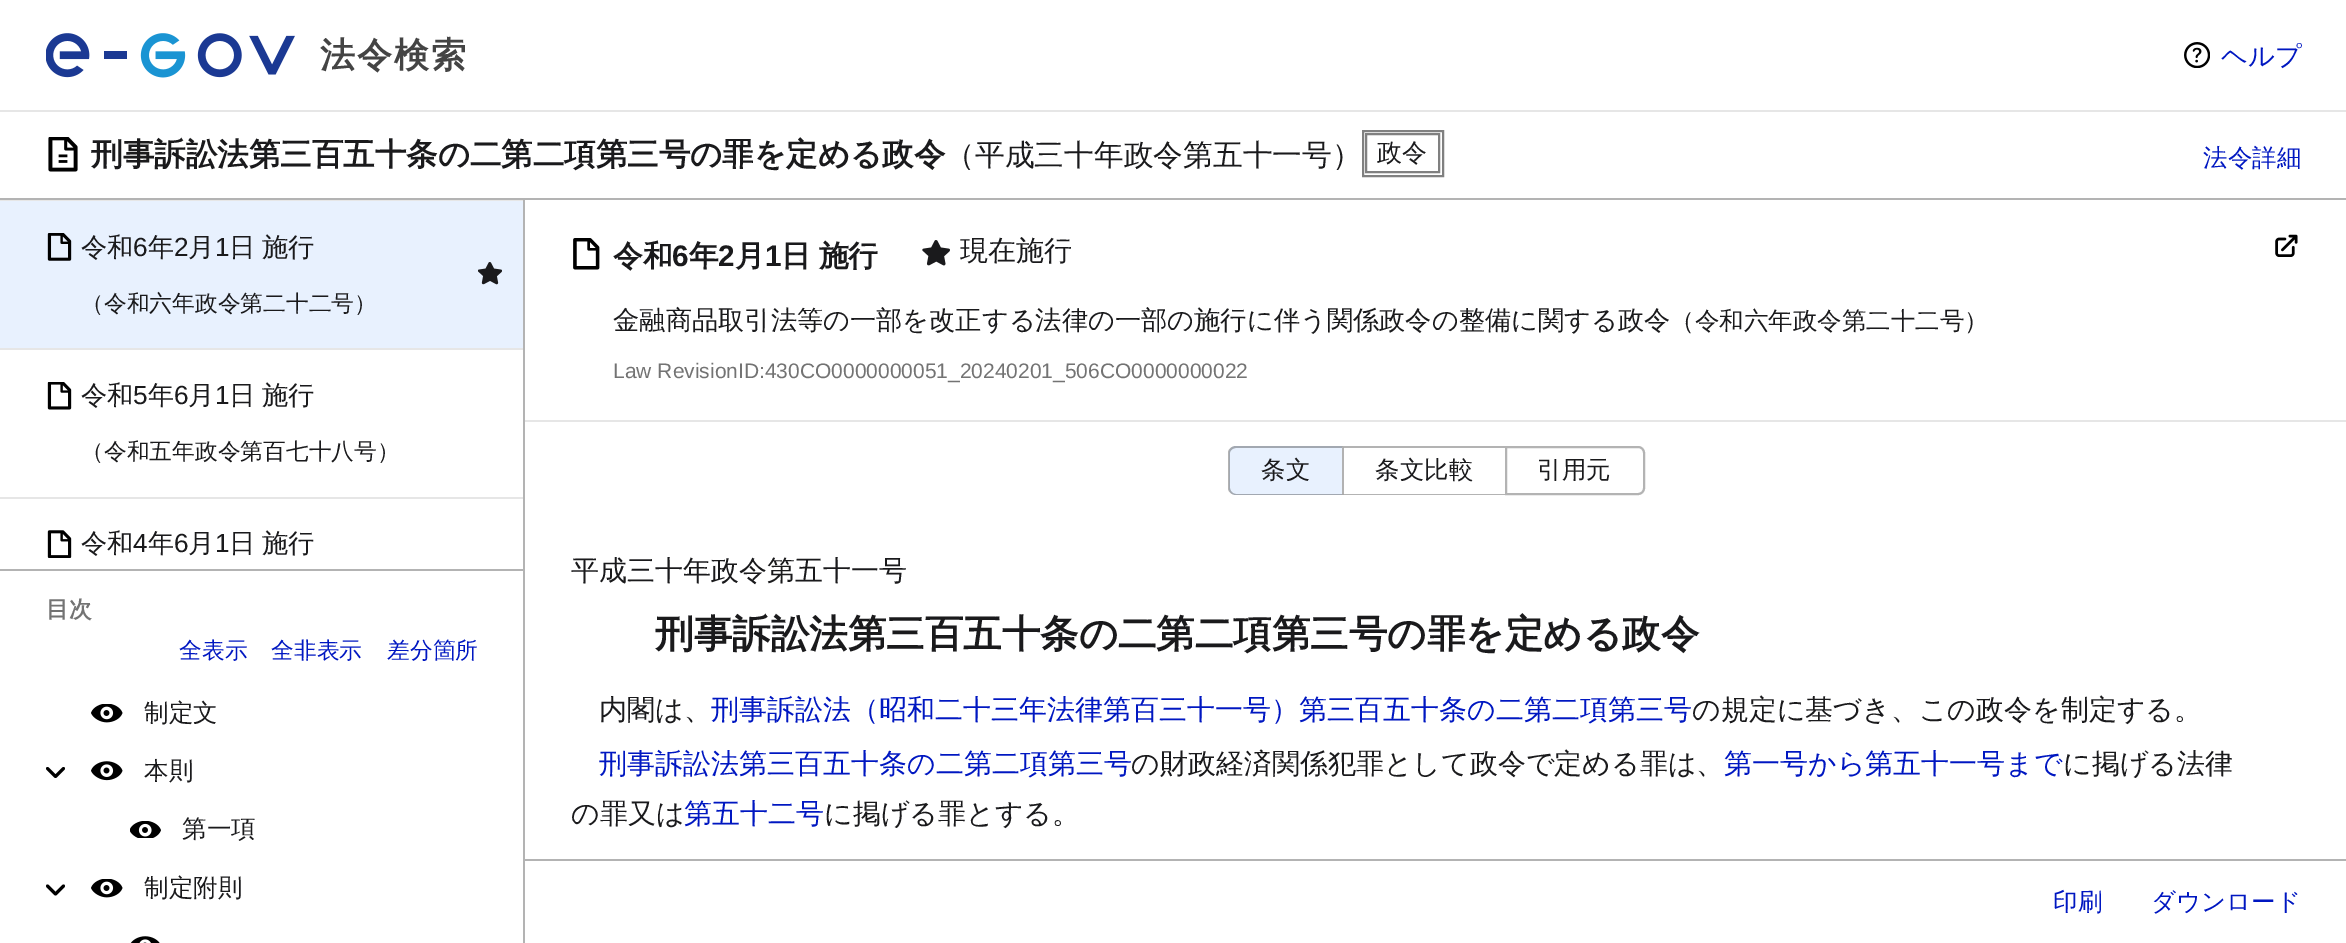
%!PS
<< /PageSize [2346 943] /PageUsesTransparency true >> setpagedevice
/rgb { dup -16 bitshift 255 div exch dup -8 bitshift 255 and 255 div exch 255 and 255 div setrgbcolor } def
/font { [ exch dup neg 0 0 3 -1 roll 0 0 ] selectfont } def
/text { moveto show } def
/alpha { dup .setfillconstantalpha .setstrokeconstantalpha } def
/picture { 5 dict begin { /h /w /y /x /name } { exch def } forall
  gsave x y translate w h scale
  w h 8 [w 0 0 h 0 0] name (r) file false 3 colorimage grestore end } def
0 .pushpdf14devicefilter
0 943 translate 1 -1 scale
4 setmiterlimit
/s1 { /WenQuanYiZenHei-Medium 26.25 font 16#0017C1 rgb } def
/s2 { /WenQuanYiZenHei-Bold 31.5 font 16#1A1A1C rgb } def
/s3 { /WenQuanYiZenHei-Medium 29.75 font 16#1A1A1C rgb } def
/s4 { /WenQuanYiZenHei-Medium 25 font 16#1A1A1C rgb } def
/s5 { /WenQuanYiZenHei-Medium 24.5 font 16#0017C1 rgb } def
/s6 { /WenQuanYiZenHei-Medium 26.25 font 16#1A1A1C rgb } def
/s7 { /LiberationSans-Regular 26.25 font 16#1A1A1C rgb } def
/s8 { /WenQuanYiZenHei-Medium 22.75 font 16#1A1A1C rgb } def
/s9 { /WenQuanYiZenHei-Bold 22.75 font 16#737373 rgb } def
/s10 { /WenQuanYiZenHei-Medium 22.75 font 16#0017C1 rgb } def
/s11 { /WenQuanYiZenHei-Medium 24.5 font 16#1A1A1C rgb } def
/s12 { /WenQuanYiZenHei-Bold 29.75 font 16#1A1A1C rgb } def
/s13 { /LiberationSans-Bold 29.75 font 16#1A1A1C rgb } def
/s14 { /WenQuanYiZenHei-Medium 28 font 16#1A1A1C rgb } def
/s15 { /LiberationSans-Regular 21 font 16#737373 rgb } def
/s16 { /WenQuanYiZenHei-Bold 38.5 font 16#1A1A1C rgb } def
/s17 { /WenQuanYiZenHei-Medium 28 font 16#0017C1 rgb } def
16#FFFFFF rgb
0 0 2346 943 rectfill
16#E6E6E6 rgb
0 110 2346 2 rectfill
(pic1.raw) 46 33 249 45 picture
/WenQuanYiZenHei-Bold 35 font
16#444444 rgb
320 67 moveto 2 0 (法令検索) ashow
(pic2.raw) 2184 42 26 26 picture
s1
(ヘルプ) 2221 65 text
16#B3B3B3 rgb
0 198 2346 2 rectfill
(pic3.raw) 48 137 30 35 picture
s2
(刑事訴訟法第三百五十条の二第二項第三号の罪を定める政令) 91 165 text
s3
(（平成三十年政令第五十一号）) 945 165 text
16#808080 rgb
2 setlinewidth
1363 131 80 45 rectstroke
1366 134 73 38 rectstroke
s4
(政令) 1377 161 text
s5
(法令詳細) 2203 166 text
16#B3B3B3 rgb
523 200 2 743 rectfill
0 569 523 2 rectfill
16#E6E6E6 rgb
0 200 523 1 rectfill
16#E8F1FE rgb
0 201 523 147 rectfill
(pic4.raw) 47 233 25 28 picture
s6
(令和) 81 256 text
s7
(6) 133 256 text
s6
(年) 148 256 text
s7
(2) 174 256 text
s6
(月) 188 256 text
s7
(1) 215 256 text
/WenQuanYiZenHei-Medium 26.25 font
229 256 moveto -1 0 32 (日 施行) widthshow
(pic5.raw) 478 262 24 23 picture
s8
(（令和六年政令第二十二号）) 81 311 text
16#E6E6E6 rgb
0 348 523 2 rectfill
(pic6.raw) 47 382 25 28 picture
s6
(令和) 81 404 text
s7
(5) 133 404 text
s6
(年) 148 404 text
s7
(6) 174 404 text
s6
(月) 188 404 text
s7
(1) 215 404 text
/WenQuanYiZenHei-Medium 26.25 font
229 404 moveto -1 0 32 (日 施行) widthshow
s8
(（令和五年政令第百七十八号）) 81 459 text
16#E6E6E6 rgb
0 497 523 2 rectfill
(pic7.raw) 47 530 25 28 picture
s6
(令和) 81 552 text
s7
(4) 133 552 text
s6
(年) 148 552 text
s7
(6) 174 552 text
s6
(月) 188 552 text
s7
(1) 215 552 text
/WenQuanYiZenHei-Medium 26.25 font
229 552 moveto -1 0 32 (日 施行) widthshow
s9
(目次) 46 617 text
s10
(全表示) 179 658 text
(全非表示) 271 658 text
(差分箇所) 387 658 text
(pic8.raw) 91 704 32 19 picture
s11
(制定文) 144 721 text
16#000000 rgb
2.9 setlinewidth
1 setlinecap
1 setlinejoin
47.5 768.5 moveto 55.5 776.5 lineto 63.5 768.5 lineto stroke
(pic9.raw) 91 761 32 20 picture
s11
(本則) 144 779 text
(pic10.raw) 130 821 31 17 picture
(第一項) 182 837 text
16#000000 rgb
47.5 886 moveto 55.5 894 lineto 63.5 886 lineto stroke
(pic8.raw) 91 879 32 19 picture
s11
(制定附則) 144 896 text
(pic11.raw) 130 936 30 7 picture
16#E6E6E6 rgb
525 420 1821 2 rectfill
(pic12.raw) 573 238 27 32 picture
s12
(令和) 613 266 text
s13
(6) 672 266 text
s12
(年) 689 266 text
s13
(2) 718 266 text
s12
(月) 735 266 text
s13
(1) 765 266 text
/WenQuanYiZenHei-Bold 29.75 font
781 266 moveto -1 0 32 (日 施行) widthshow
(pic13.raw) 922 240 28 26 picture
s14
(現在施行) 960 260 text
(pic14.raw) 2275 234 23 23 picture
s6
(金融商品取引法等の一部を改正する法律の一部の施行に伴う関係政令の整備に関する政令) 613 329 text
s11
(（令和六年政令第二十二号）) 1670 329 text
s15
(Law RevisionID:430CO0000000051_20240201_506CO0000000022) 613 378 text
16#E8F1FE rgb
1236 446 moveto 1342 446 lineto 1342 495 lineto 1236 495 lineto 1232 495 1229 492 1229 488 curveto 1229 453 lineto 1229 449 1232 446 1236 446 curveto closepath fill
0.3 alpha
16#000000 rgb
1236 446 moveto 1342 446 lineto 1342 495 lineto 1236 495 lineto 1232 495 1228 492 1228 488 curveto 1228 453 lineto 1228 449 1232 446 1236 446 curveto closepath 1236 448 moveto 1342 448 lineto 1342 494 lineto 1236 494 lineto 1233 494 1230 491 1230 488 curveto 1230 453 lineto 1230 450 1233 448 1236 448 curveto closepath eofill
1 alpha
s11
(条文) 1261 478 text
16#B3B3B3 rgb
1342 446 moveto 1505 446 lineto 1505 448 lineto 1344 448 lineto closepath fill
1505 495 moveto 1342 495 lineto 1344 494 lineto 1505 494 lineto closepath fill
0.3 alpha
16#000000 rgb
1342 495 moveto 1342 446 lineto 1344 448 lineto 1344 494 lineto closepath fill
1 alpha
s11
(条文比較) 1375 478 text
16#B3B3B3 rgb
2 setlinewidth
0 setlinecap
0 setlinejoin
1506 447 moveto 1638 447 lineto 1641.5 447 1644 449.5 1644 453 curveto 1644 488 lineto 1644 491.5 1641.5 494 1638 494 curveto 1506 494 lineto closepath stroke
s11
(引用元) 1537 478 text
s14
(平成三十年政令第五十一号) 571 580 text
s16
(刑事訴訟法第三百五十条の二第二項第三号の罪を定める政令) 655 647 text
s14
(内閣は、) 599 719 text
s17
(刑事訴訟法（昭和二十三年法律第百三十一号）第三百五十条の二第二項第三号) 711 719 text
s14
(の規定に基づき、この政令を制定する。) 1692 719 text
s17
(刑事訴訟法第三百五十条の二第二項第三号) 599 773 text
s14
(の財政経済関係犯罪として政令で定める罪は、) 1131 773 text
s17
(第一号から第五十一号まで) 1724 773 text
s14
(に掲げる法律) 2063 773 text
(の罪又は) 571 823 text
s17
(第五十二号) 684 823 text
s14
(に掲げる罪とする。) 824 823 text
16#B3B3B3 rgb
525 859 1821 2 rectfill
s5
(印刷) 2053 910 text
(ダウンロード) 2151 910 text
.poppdf14devicefilter showpage
